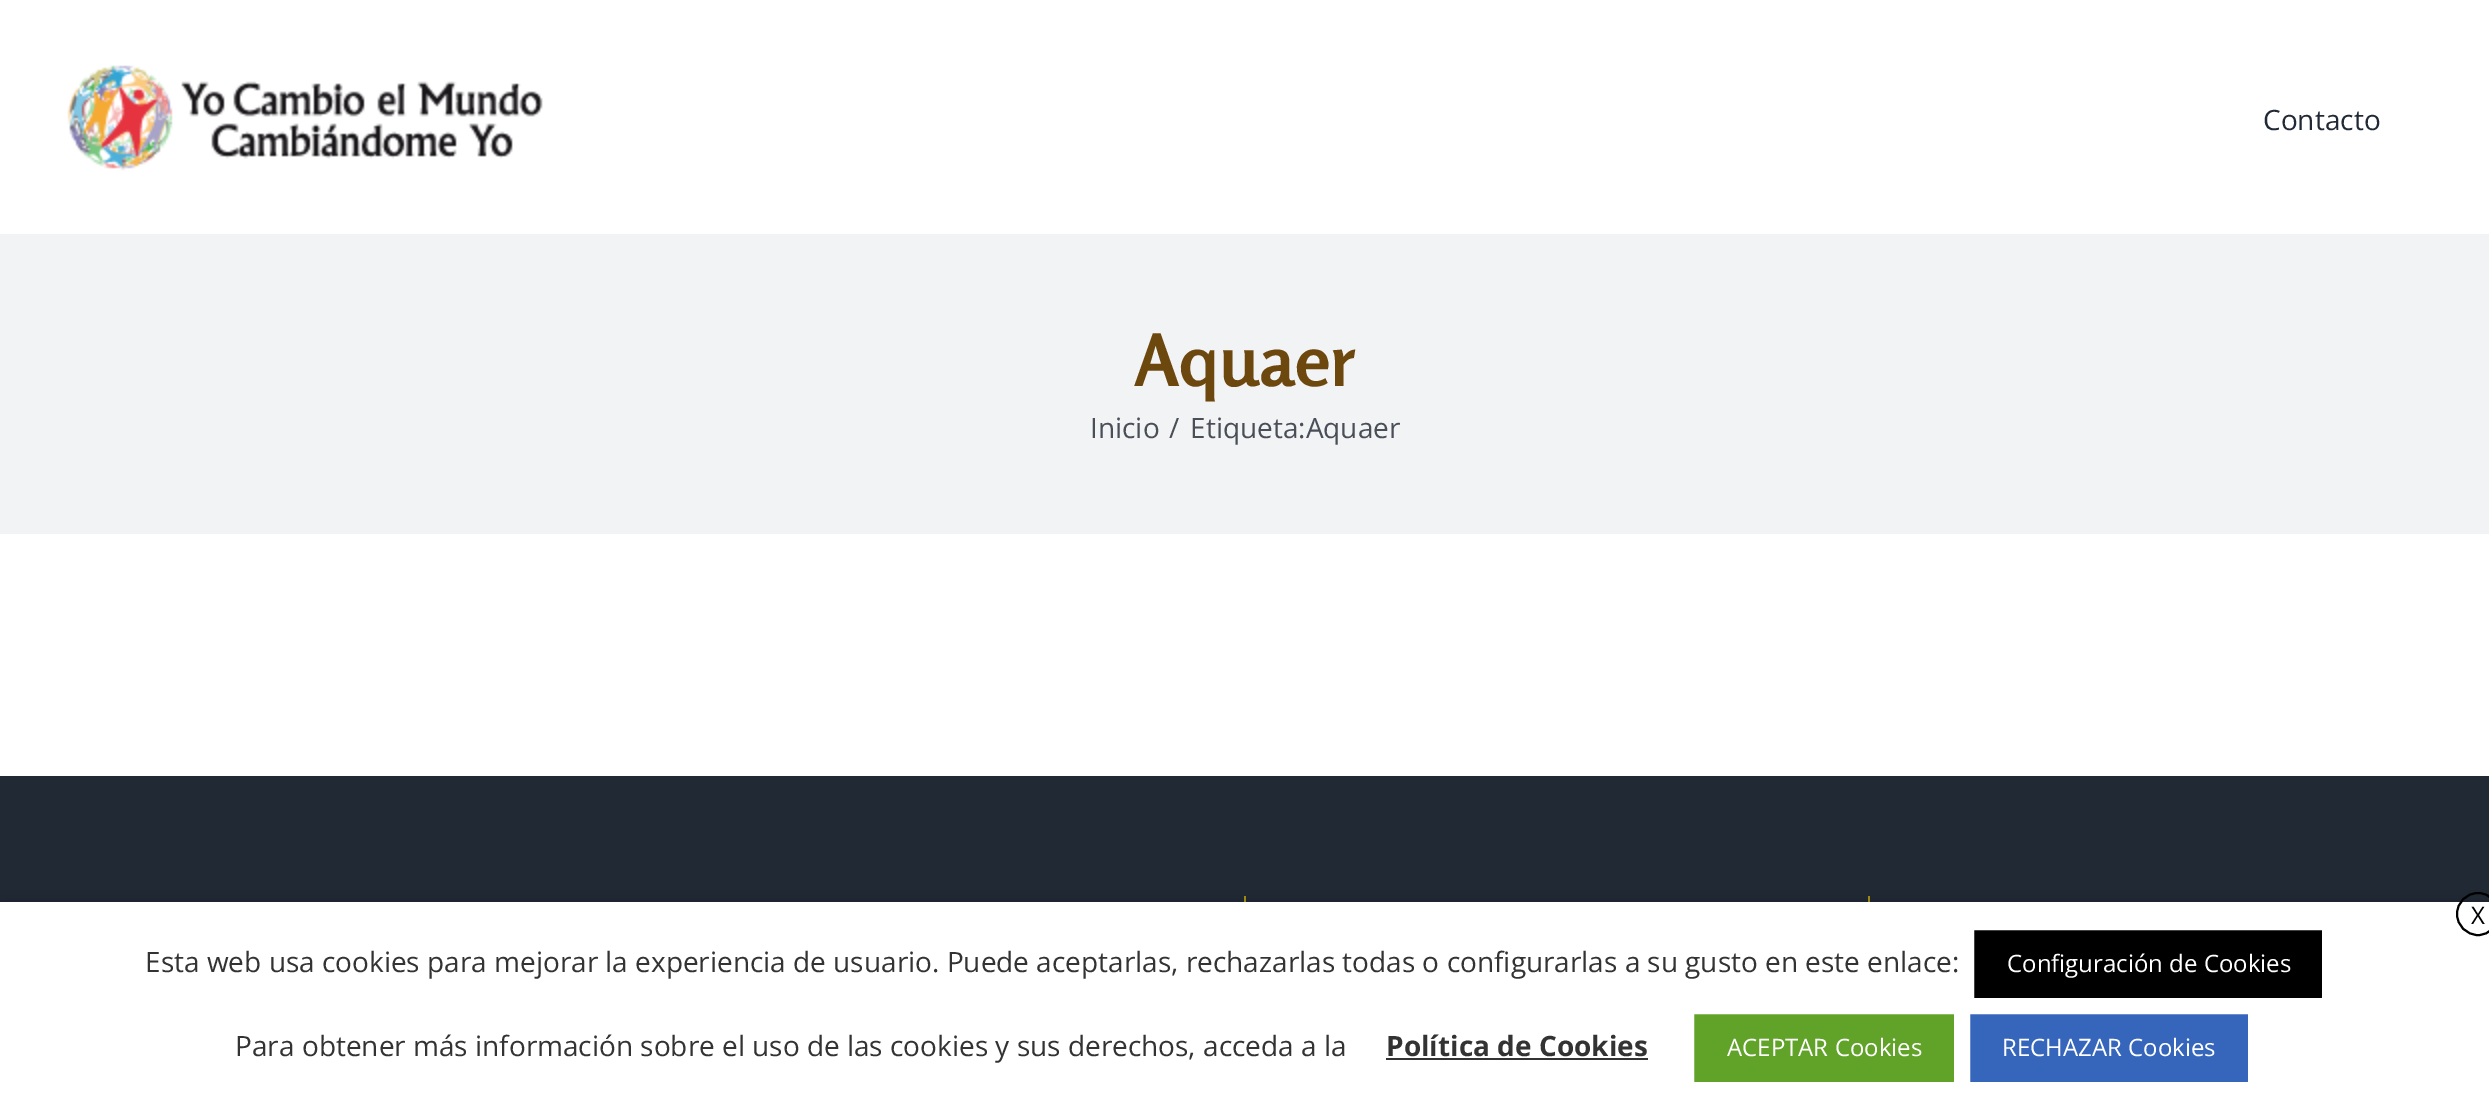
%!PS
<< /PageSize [2489 1110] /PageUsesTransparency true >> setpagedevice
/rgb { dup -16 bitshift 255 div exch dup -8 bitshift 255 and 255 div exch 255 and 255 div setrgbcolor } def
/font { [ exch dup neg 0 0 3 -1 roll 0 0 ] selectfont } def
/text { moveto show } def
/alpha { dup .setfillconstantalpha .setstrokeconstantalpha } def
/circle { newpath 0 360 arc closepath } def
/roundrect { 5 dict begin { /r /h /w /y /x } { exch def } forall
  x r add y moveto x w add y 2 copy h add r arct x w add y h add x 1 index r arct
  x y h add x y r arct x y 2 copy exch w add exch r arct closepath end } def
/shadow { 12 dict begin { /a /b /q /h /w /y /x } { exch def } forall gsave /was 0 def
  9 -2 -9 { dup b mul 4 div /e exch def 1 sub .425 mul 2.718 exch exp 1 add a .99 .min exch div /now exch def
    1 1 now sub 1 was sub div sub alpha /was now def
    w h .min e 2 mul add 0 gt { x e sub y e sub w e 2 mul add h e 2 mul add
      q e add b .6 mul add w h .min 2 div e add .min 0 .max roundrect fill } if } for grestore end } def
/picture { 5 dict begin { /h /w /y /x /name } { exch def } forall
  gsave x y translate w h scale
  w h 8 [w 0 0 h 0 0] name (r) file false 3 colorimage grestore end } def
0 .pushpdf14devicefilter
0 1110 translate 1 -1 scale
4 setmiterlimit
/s1 { /OpenSans-Regular 28 font 16#212934 rgb } def
/s2 { /Rosario-Bold 72 font 16#6D480E rgb } def
/s3 { /OpenSans-Regular 28 font 16#4A4E57 rgb } def
/s4 { /OpenSans-Regular 24 font 16#000000 rgb } def
/s5 { /OpenSans-Regular 28 font 16#333333 rgb } def
/s6 { /OpenSans-Regular 24 font 16#FFFFFF rgb } def
/s7 { /OpenSans-Bold 28 font 16#333333 rgb } def
16#FFFFFF rgb
0 0 2489 1110 rectfill
(pic1.raw) 67 65 476 106 picture
s1
(Contacto) 2263 130 text
16#F2F3F5 rgb
0 234 2489 300 rectfill
s2
(Aquaer) 1134 386 text
s3
(Inicio) 1090 438 text
(/) 1169 438 text
(Etiqueta:Aquaer) 1190 438 text
16#212934 rgb
0 776 2489 126 rectfill
16#A58F0F rgb
1244 896 2 6 rectfill
1868 896 2 6 rectfill
16#000000 rgb
0 912 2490 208 0 10 0.5 shadow
16#FFFFFF rgb
0 902 2489 208 rectfill
16#000000 rgb
2 setlinewidth
2478 914 21 circle stroke
s4
(X) 2471 924 text
s5
(Esta web usa cookies para mejorar la experiencia de usuario. Puede aceptarlas, rechazarlas todas o configurarlas a su gusto en este enlace:) 145 972 text
16#000000 rgb
1970 926 356 76 4 roundrect gsave fill grestore
16#FFFFFF rgb
8 setlinewidth
stroke
s6
(Configuración de Cookies) 2007 972 text
s5
(Para obtener más información sobre el uso de las cookies y sus derechos, acceda a la) 235 1056 text
s7
(Política de Cookies) 1386 1056 text
1386 1058 262 2 rectfill
16#61A229 rgb
1690 1010 268 76 4 roundrect gsave fill grestore
16#FFFFFF rgb
stroke
s6
(ACEPTAR Cookies) 1727 1056 text
16#3566BB rgb
1966 1010 286 76 4 roundrect gsave fill grestore
16#FFFFFF rgb
stroke
(RECHAZAR Cookies) 2002 1056 text
.poppdf14devicefilter showpage
